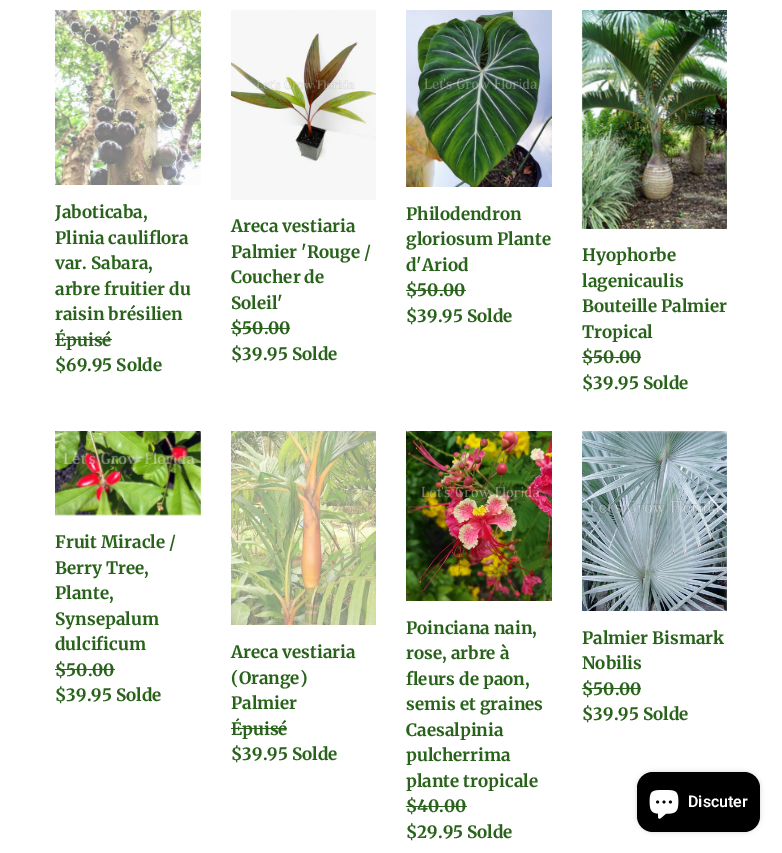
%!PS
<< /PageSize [782 853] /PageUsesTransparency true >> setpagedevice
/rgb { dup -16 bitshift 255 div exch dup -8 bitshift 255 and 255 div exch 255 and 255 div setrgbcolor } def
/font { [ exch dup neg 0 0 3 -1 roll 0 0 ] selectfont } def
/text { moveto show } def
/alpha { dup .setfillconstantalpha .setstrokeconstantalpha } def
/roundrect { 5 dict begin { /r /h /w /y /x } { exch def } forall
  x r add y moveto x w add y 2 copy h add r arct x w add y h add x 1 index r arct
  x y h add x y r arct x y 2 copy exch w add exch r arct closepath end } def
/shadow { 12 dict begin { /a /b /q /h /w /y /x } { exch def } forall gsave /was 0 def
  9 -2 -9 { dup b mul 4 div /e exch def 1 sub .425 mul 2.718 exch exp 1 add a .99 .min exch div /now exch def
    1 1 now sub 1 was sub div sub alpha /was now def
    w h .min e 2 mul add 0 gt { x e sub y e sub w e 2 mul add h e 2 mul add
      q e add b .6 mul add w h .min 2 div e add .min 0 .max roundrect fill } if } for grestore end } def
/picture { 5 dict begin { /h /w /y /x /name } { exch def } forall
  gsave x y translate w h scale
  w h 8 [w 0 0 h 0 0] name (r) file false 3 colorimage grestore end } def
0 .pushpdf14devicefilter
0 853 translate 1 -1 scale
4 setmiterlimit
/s1 { /Merriweather-Bold 17 font 16#29621A rgb } def
/s2 { /Roboto-SemiBold 16 font 16#FFFFFF rgb } def
16#FFFFFF rgb
0 0 782 853 rectfill
(pic1.raw) 55 10 146 175 picture
s1
(Jaboticaba,) 55 218 text
(Plinia cauliflora) 55 244 text
(var. Sabara,) 55 269 text
(arbre fruitier du) 55 295 text
(raisin brésilien) 55 320 text
(Épuisé) 55 346 text
55 339 57 1 rectfill
($69.95 Solde) 55 371 text
(pic2.raw) 231 10 145 190 picture
(Areca vestiaria) 231 232 text
(Palmier 'Rouge /) 231 258 text
(Coucher de) 231 283 text
(Soleil') 231 309 text
($50.00) 231 334 text
231 328 59 1 rectfill
($39.95 Solde) 231 360 text
(pic3.raw) 406 10 146 177 picture
(Philodendron) 406 220 text
(gloriosum Plante) 406 245 text
(d'Ariod) 406 271 text
($50.00) 406 296 text
406 290 60 1 rectfill
($39.95 Solde) 406 322 text
(pic4.raw) 581 10 146 219 picture
(Hyophorbe) 582 261 text
(lagenicaulis) 582 287 text
(Bouteille Palmier) 582 312 text
(Tropical) 582 338 text
($50.00) 582 363 text
582 357 59 1 rectfill
($39.95 Solde) 582 389 text
(pic5.raw) 55 431 146 85 picture
(Fruit Miracle /) 55 548 text
(Berry Tree,) 55 574 text
(Plante,) 55 599 text
(Synsepalum) 55 625 text
(dulcificum) 55 650 text
($50.00) 55 676 text
55 669 60 1 rectfill
($39.95 Solde) 55 701 text
(pic6.raw) 231 431 145 194 picture
(Areca vestiaria) 231 658 text
(\(Orange\)) 231 684 text
(Palmier) 231 709 text
(Épuisé) 231 735 text
231 728 56 1 rectfill
($39.95 Solde) 231 760 text
(pic7.raw) 406 431 146 170 picture
(Poinciana nain,) 406 634 text
(rose, arbre à) 406 659 text
(fleurs de paon,) 406 685 text
(semis et graines) 406 710 text
(Caesalpinia) 406 736 text
(pulcherrima) 406 761 text
(plante tropicale) 406 787 text
($40.00) 406 812 text
406 806 61 1 rectfill
($29.95 Solde) 406 838 text
(pic8.raw) 582 431 145 180 picture
(Palmier Bismark) 582 644 text
(Nobilis) 582 669 text
($50.00) 582 695 text
582 688 59 1 rectfill
($39.95 Solde) 582 720 text
16#000000 rgb
637 772 123 60 16 2.5 0.15 shadow
637 772 123 60 16 roundrect fill
(pic9.raw) 649 790 30 29 picture
s2
(Discuter) 688 807 text
.poppdf14devicefilter showpage
